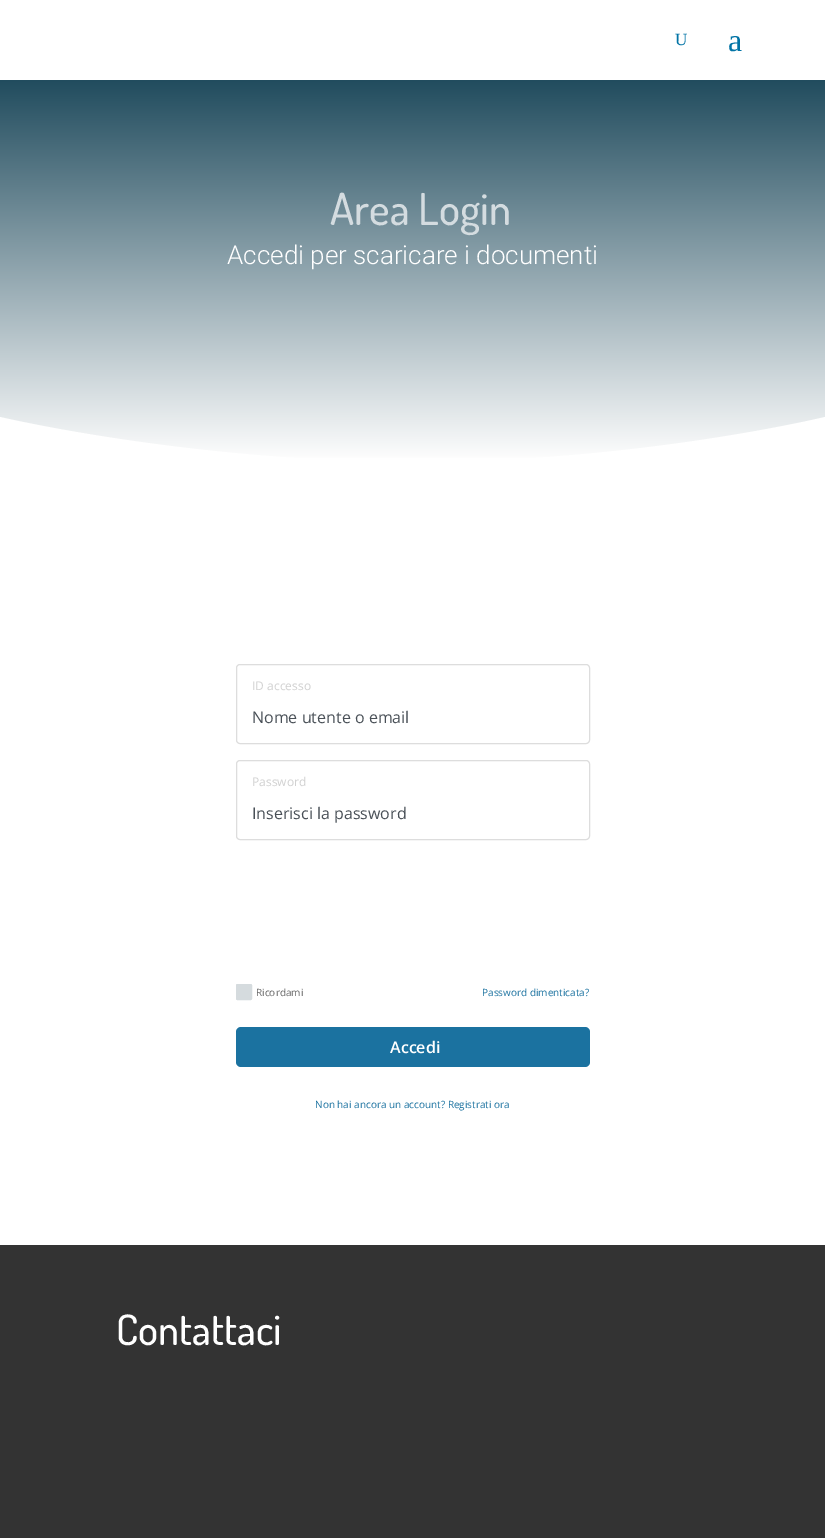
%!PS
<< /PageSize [825 1538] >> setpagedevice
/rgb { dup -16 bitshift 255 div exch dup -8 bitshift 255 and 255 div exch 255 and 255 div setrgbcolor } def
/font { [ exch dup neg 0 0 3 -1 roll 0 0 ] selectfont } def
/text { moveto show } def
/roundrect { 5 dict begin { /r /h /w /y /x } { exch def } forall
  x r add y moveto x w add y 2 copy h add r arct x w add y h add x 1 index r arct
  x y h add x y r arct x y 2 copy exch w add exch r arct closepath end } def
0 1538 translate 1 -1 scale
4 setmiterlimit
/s1 { /LiberationSerif-Regular 17 font 16#0274A6 rgb } def
/s2 { /LiberationSerif-Regular 32 font 16#0274A6 rgb } def
/s3 { /Dosis-Medium 44 font 16#D4DCE0 rgb } def
/s4 { /Roboto-Light 26 font 16#FFFFFF rgb } def
/s5 { /OpenSans-Regular 12 font 16#D1D1D1 rgb } def
/s6 { /OpenSans-Regular 16 font 16#495057 rgb } def
/s7 { /OpenSans-Regular 10 font 16#666666 rgb } def
/s8 { /OpenSans-Regular 10 font 16#1B72A0 rgb } def
/s9 { /OpenSans-SemiBold 16 font 16#FFFFFF rgb } def
/s10 { /Dosis-Medium 42 font 16#FFFFFF rgb } def
16#FFFFFF rgb
0 0 825 1538 rectfill
s1
(U) 675 45 text
s2
(a) 728 51 text
gsave 0 80 moveto 825 80 lineto 825 458 lineto 0 458 lineto closepath clip newpath
<< /ShadingType 2 /ColorSpace /DeviceRGB /Coords [413 0 413 462] /Extend [true true] /Function << /FunctionType 3 /Domain [0 1] /Functions [<< /FunctionType 2 /Domain [0 1] /C0 [0 0.192 0.275] /C1 [0 0.192 0.275] /N 1 >> << /FunctionType 2 /Domain [0 1] /C0 [0 0.192 0.275] /C1 [1 1 1] /N 1 >>] /Bounds [0.05] /Encode [0 1 0 1] >> >> shfill grestore
s3
(Area Login) 330 225 text
s4
(Accedi per scaricare i documenti) 227 264 text
825 462 moveto 825 417 lineto 825 417 640 462 412 462 curveto 185 461 0 417 0 417 curveto 0 462 lineto closepath fill
16#DDDDDD rgb
236.5 664.5 353 79 3.5 roundrect stroke
s5
(ID accesso) 252 690 text
s6
(Nome utente o email) 252 723 text
16#DDDDDD rgb
236.5 760.5 353 79 3.5 roundrect stroke
s5
(Password) 252 786 text
s6
(Inserisci la password) 252 819 text
16#D5DBDE rgb
236.5 984.5 15 15 1 roundrect gsave fill grestore
stroke
s7
(Ricordami) 256 996 text
s8
(Password dimenticata?) 482 996 text
236 1027 354 40 5 roundrect fill
s9
(Accedi) 390 1053 text
s8
(Non hai ancora un account? Registrati ora) 315 1108 text
16#333333 rgb
0 1245 825 293 rectfill
s10
(Contattaci) 116 1345 text
showpage
